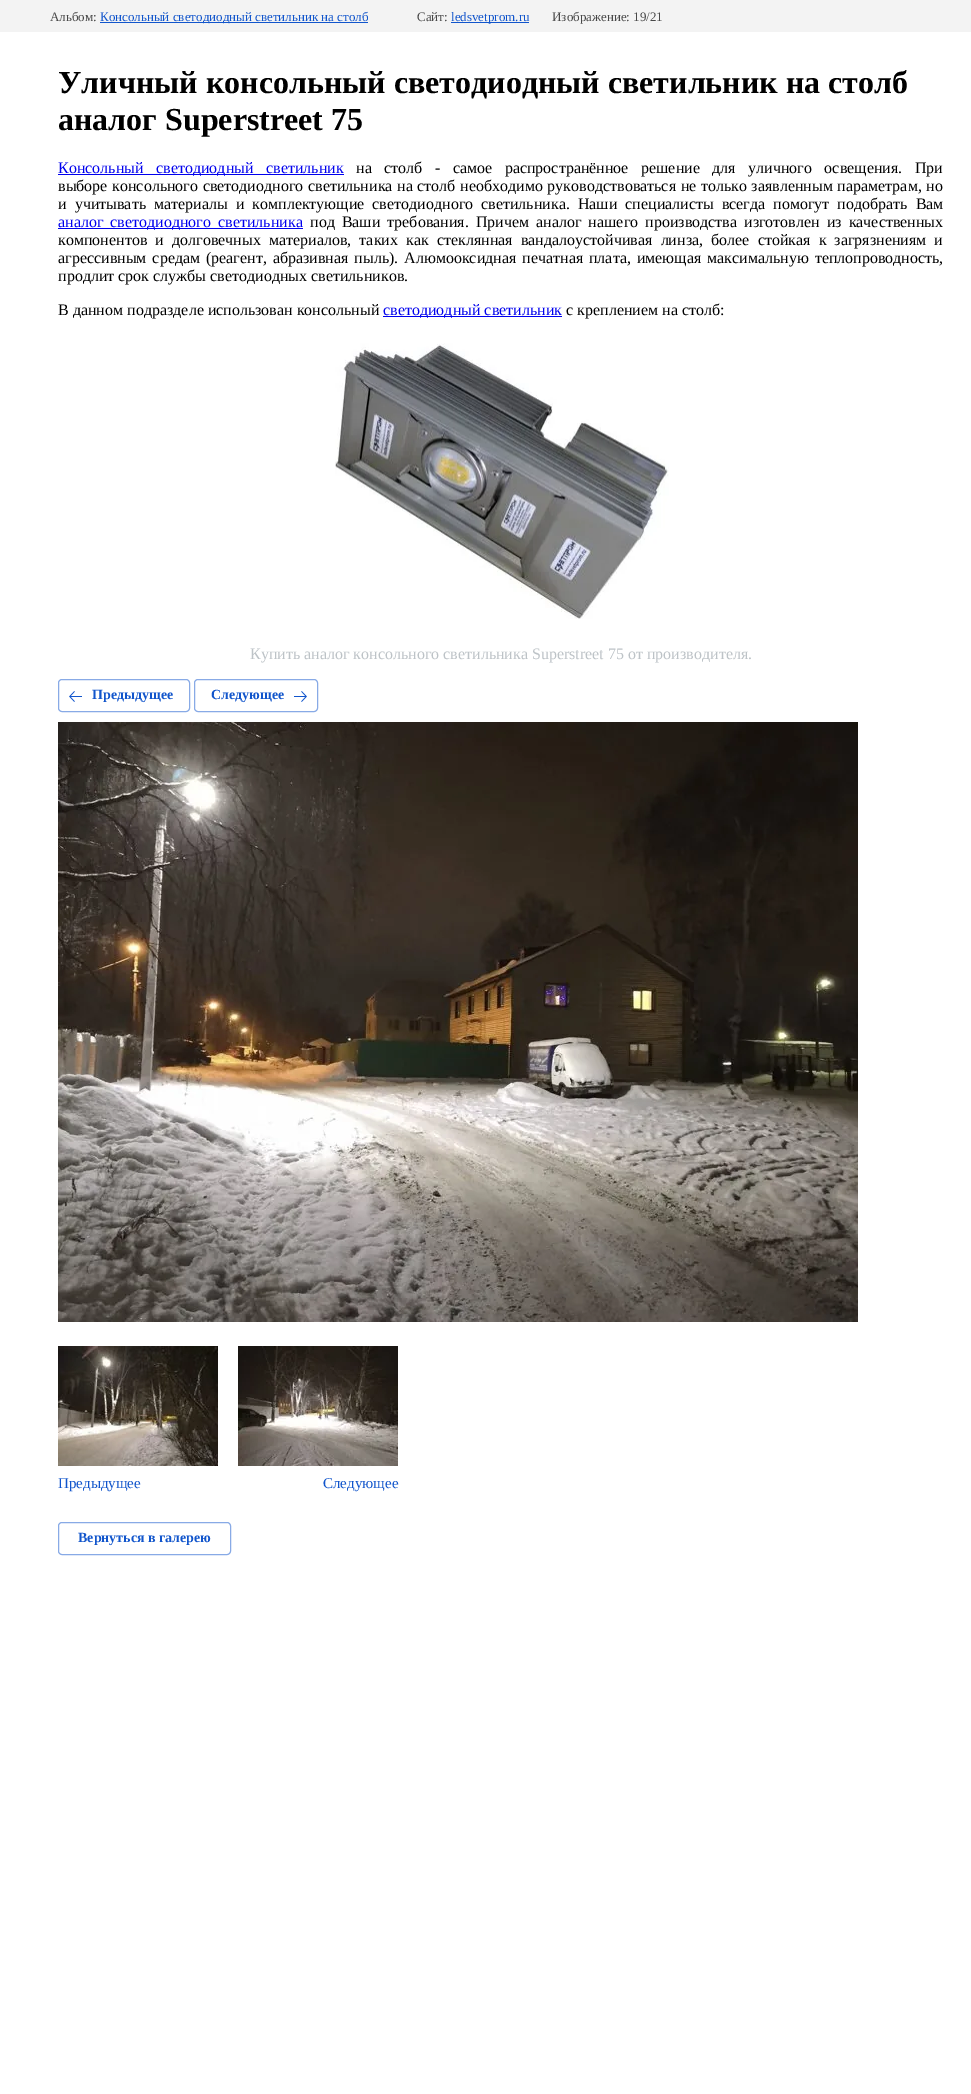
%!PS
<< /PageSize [971 2094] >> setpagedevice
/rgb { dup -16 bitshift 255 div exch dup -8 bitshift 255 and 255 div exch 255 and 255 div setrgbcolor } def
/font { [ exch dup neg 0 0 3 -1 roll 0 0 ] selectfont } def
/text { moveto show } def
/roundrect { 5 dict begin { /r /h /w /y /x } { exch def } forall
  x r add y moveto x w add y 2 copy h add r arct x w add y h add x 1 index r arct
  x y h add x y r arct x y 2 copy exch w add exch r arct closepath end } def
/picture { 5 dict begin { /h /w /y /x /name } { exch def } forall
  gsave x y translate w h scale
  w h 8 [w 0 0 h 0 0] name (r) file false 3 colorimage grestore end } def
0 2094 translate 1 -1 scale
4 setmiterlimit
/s1 { /LiberationSerif-Regular 13 font 16#484848 rgb } def
/s2 { /LiberationSerif-Regular 13 font 16#1155CC rgb } def
/s3 { /LiberationSerif-Bold 32 font 16#000000 rgb } def
/s4 { /LiberationSerif-Regular 16 font 16#000000 rgb } def
/s5 { /LiberationSerif-Regular 16 font 16#0000EE rgb } def
/s6 { /LiberationSerif-Regular 16 font 16#BDC3C7 rgb } def
/s7 { /LiberationSerif-Bold 14 font 16#1155CC rgb } def
/s8 { /LiberationSerif-Regular 15 font 16#1155CC rgb } def
16#FFFFFF rgb
0 0 971 2094 rectfill
16#F3F3F3 rgb
0 0 971 32 rectfill
s1
(Альбом:) 50 21 text
16#1155CC rgb
100 22 268 1 rectfill
(Консольный светодиодный светильник на столб) 100 21 text
s1
(Сайт:) 417 21 text
16#1155CC rgb
451 22 78 1 rectfill
(ledsvetprom.ru) 451 21 text
s1
(Изображение: 19/21) 552 21 text
s3
(Уличный консольный светодиодный светильник на столб) 58 93 text
(аналог Superstreet 75) 58 130 text
16#0000EE rgb
58 174 286 1 rectfill
/LiberationSerif-Regular 16 font
58 173 moveto 8.5 0 32 (Консольный светодиодный светильник) widthshow
16#000000 rgb
356 173 moveto 8.5 0 32 (на столб - самое распространённое решение для уличного освещения. При) widthshow
58 191 moveto 0.6 0 32 (выборе консольного светодиодного светильника на столб необходимо руководствоваться не только заявленным параметрам, но) widthshow
58 209 moveto 4 0 32 (и учитывать материалы и комплектующие светодиодного светильника. Наши специалисты всегда помогут подобрать Вам) widthshow
16#0000EE rgb
58 228 245 1 rectfill
58 227 moveto 3 0 32 (аналог светодиодного светильника) widthshow
16#000000 rgb
310 227 moveto 3 0 32 (под Ваши требования. Причем аналог нашего производства изготовлен из качественных) widthshow
58 245 moveto 4.1 0 32 (компонентов и долговечных материалов, таких как стеклянная вандалоустойчивая линза, более стойкая к загрязнениям и) widthshow
58 263 moveto 1.9 0 32 (агрессивным средам \(реагент, абразивная пыль\). Алюмооксидная печатная плата, имеющая максимальную теплопроводность,) widthshow
(продлит срок службы светодиодных светильников.) 58 281 text
(В данном подразделе использован консольный) 58 315 text
16#0000EE rgb
383 316 179 1 rectfill
(светодиодный светильник) 383 315 text
s4
(с креплением на столб:) 566 315 text
(pic1.raw) 335 343 334 276 picture
s6
(Купить аналог консольного светильника Superstreet 75 от производителя.) 250 659 text
16#88AAE6 rgb
58.5 679.5 131 32 3.5 roundrect stroke
(pic2.raw) 69 691 13 11 picture
s7
(Предыдущее) 92 699 text
16#88AAE6 rgb
194.5 679.5 123 32 3.5 roundrect stroke
s7
(Следующее) 211 699 text
(pic3.raw) 294 691 13 11 picture
(pic4.raw) 58 722 800 600 picture
(pic5.raw) 58 1346 160 120 picture
s8
(Предыдущее) 58 1488 text
(pic6.raw) 238 1346 160 120 picture
(Следующее) 323 1488 text
16#88AAE6 rgb
58.5 1522.5 172 32 3.5 roundrect stroke
s7
(Вернуться в галерею) 78 1542 text
showpage
